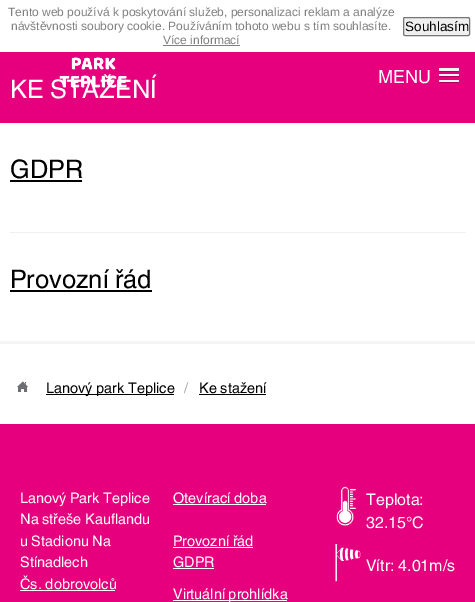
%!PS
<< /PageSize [475 602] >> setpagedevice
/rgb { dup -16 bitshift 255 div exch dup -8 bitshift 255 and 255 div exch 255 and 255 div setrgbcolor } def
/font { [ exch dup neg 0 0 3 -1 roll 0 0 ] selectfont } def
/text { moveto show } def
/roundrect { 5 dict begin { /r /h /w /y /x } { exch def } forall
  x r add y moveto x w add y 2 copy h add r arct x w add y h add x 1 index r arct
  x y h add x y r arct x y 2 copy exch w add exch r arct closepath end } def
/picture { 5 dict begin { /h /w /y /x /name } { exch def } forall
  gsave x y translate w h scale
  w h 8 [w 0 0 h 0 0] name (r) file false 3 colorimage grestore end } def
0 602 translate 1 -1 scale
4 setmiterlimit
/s1 { /LiberationSans-Regular 12 font 16#808080 rgb } def
/s2 { /LiberationSans-Regular 13.5 font 16#000000 rgb } def
/s3 { /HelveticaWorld-Regular 25.5 font 16#FFFFFF rgb } def
/s4 { /HelveticaWorld-Regular 18 font 16#FFFFFF rgb } def
/s5 { /HelveticaWorld-Regular 25.5 font 16#000000 rgb } def
/s6 { /HelveticaWorld-Regular 14.5 font 16#000000 rgb } def
/s7 { /HelveticaWorld-Regular 14.5 font 16#A9A9A9 rgb } def
/s8 { /HelveticaWorld-Regular 14.5 font 16#FFFFFF rgb } def
/s9 { /HelveticaWorld-Regular 16 font 16#FFFFFF rgb } def
16#FFFFFF rgb
0 0 475 602 rectfill
s1
(Tento web používá k poskytování služeb, personalizaci reklam a analýze) 8 16 text
(návštěvnosti soubory cookie. Používáním tohoto webu s tím souhlasíte.) 11 30 text
(Více informací) 163 44 text
163 45 77 1 rectfill
16#EFEFEF rgb
403.5 17.5 66 18 1.5 roundrect gsave fill grestore
16#767676 rgb
stroke
s2
(Souhlasím) 405 31 text
16#E6007E rgb
0 52 475 71 rectfill
s3
(KE STAŽENÍ) 10 98 text
(pic1.raw) 59 57 68 31 picture
s4
(MENU) 378 83 text
16#AD005F rgb
439 70 moveto 439 72.5 440 72 443 72 curveto 455 72 lineto 458 72 459 72.5 459 70 curveto 459 70.5 458.5 71 458 71 curveto 440 71 lineto 439.5 71 439 70.5 439 70 curveto closepath fill
16#F5F5F5 rgb
439 68 20 3 1 roundrect fill
16#AD005F rgb
439 75.5 moveto 438 77 441 77 443 77 curveto 455 77 lineto 457 77 460 77 459 75.5 curveto 458 76 lineto 440 76 lineto closepath fill
16#F5F5F5 rgb
439 74 20 2 1 roundrect fill
16#AD005F rgb
439 81.5 moveto 438 83 441 83 443 83 curveto 455 83 lineto 457 83 460 83 459 81.5 curveto 458 82 lineto 440 82 lineto closepath fill
16#F5F5F5 rgb
439 80 20 2 1 roundrect fill
16#EFEFEF rgb
10 232 456 1 rectfill
s5
(GDPR) 10 178 text
10 180 72 2 rectfill
(Provozní řád) 10 288 text
10 290 142 2 rectfill
16#F5F5F5 rgb
0 341 475 3 rectfill
(pic2.raw) 17 381 11 11 picture
16#000000 rgb
46 394 128 1 rectfill
s6
(Lanový park Teplice) 46 393 text
s7
(/) 184 393 text
s6
(Ke stažení) 199 393 text
199 394 67 1 rectfill
16#E6007E rgb
0 424 475 178 rectfill
s8
(Lanový Park Teplice) 20 503 text
(Na střeše Kauflandu) 20 524 text
(u Stadionu Na) 20 546 text
(Stínadlech) 20 567 text
(Čs. dobrovolců) 20 589 text
20 590 95 1 rectfill
(Otevírací doba) 173 503 text
173 504 93 1 rectfill
(Provozní řád) 173 546 text
173 547 80 1 rectfill
(GDPR) 173 567 text
173 568 41 1 rectfill
173 600 114 1 rectfill
(Virtuální prohlídka) 173 599 text
(pic3.raw) 336 486 20 40 picture
s9
(Teplota:) 366 505 text
(32.15°C) 366 528 text
(pic4.raw) 335 544 26 38 picture
(Vítr: 4.01m/s) 366 571 text
showpage
